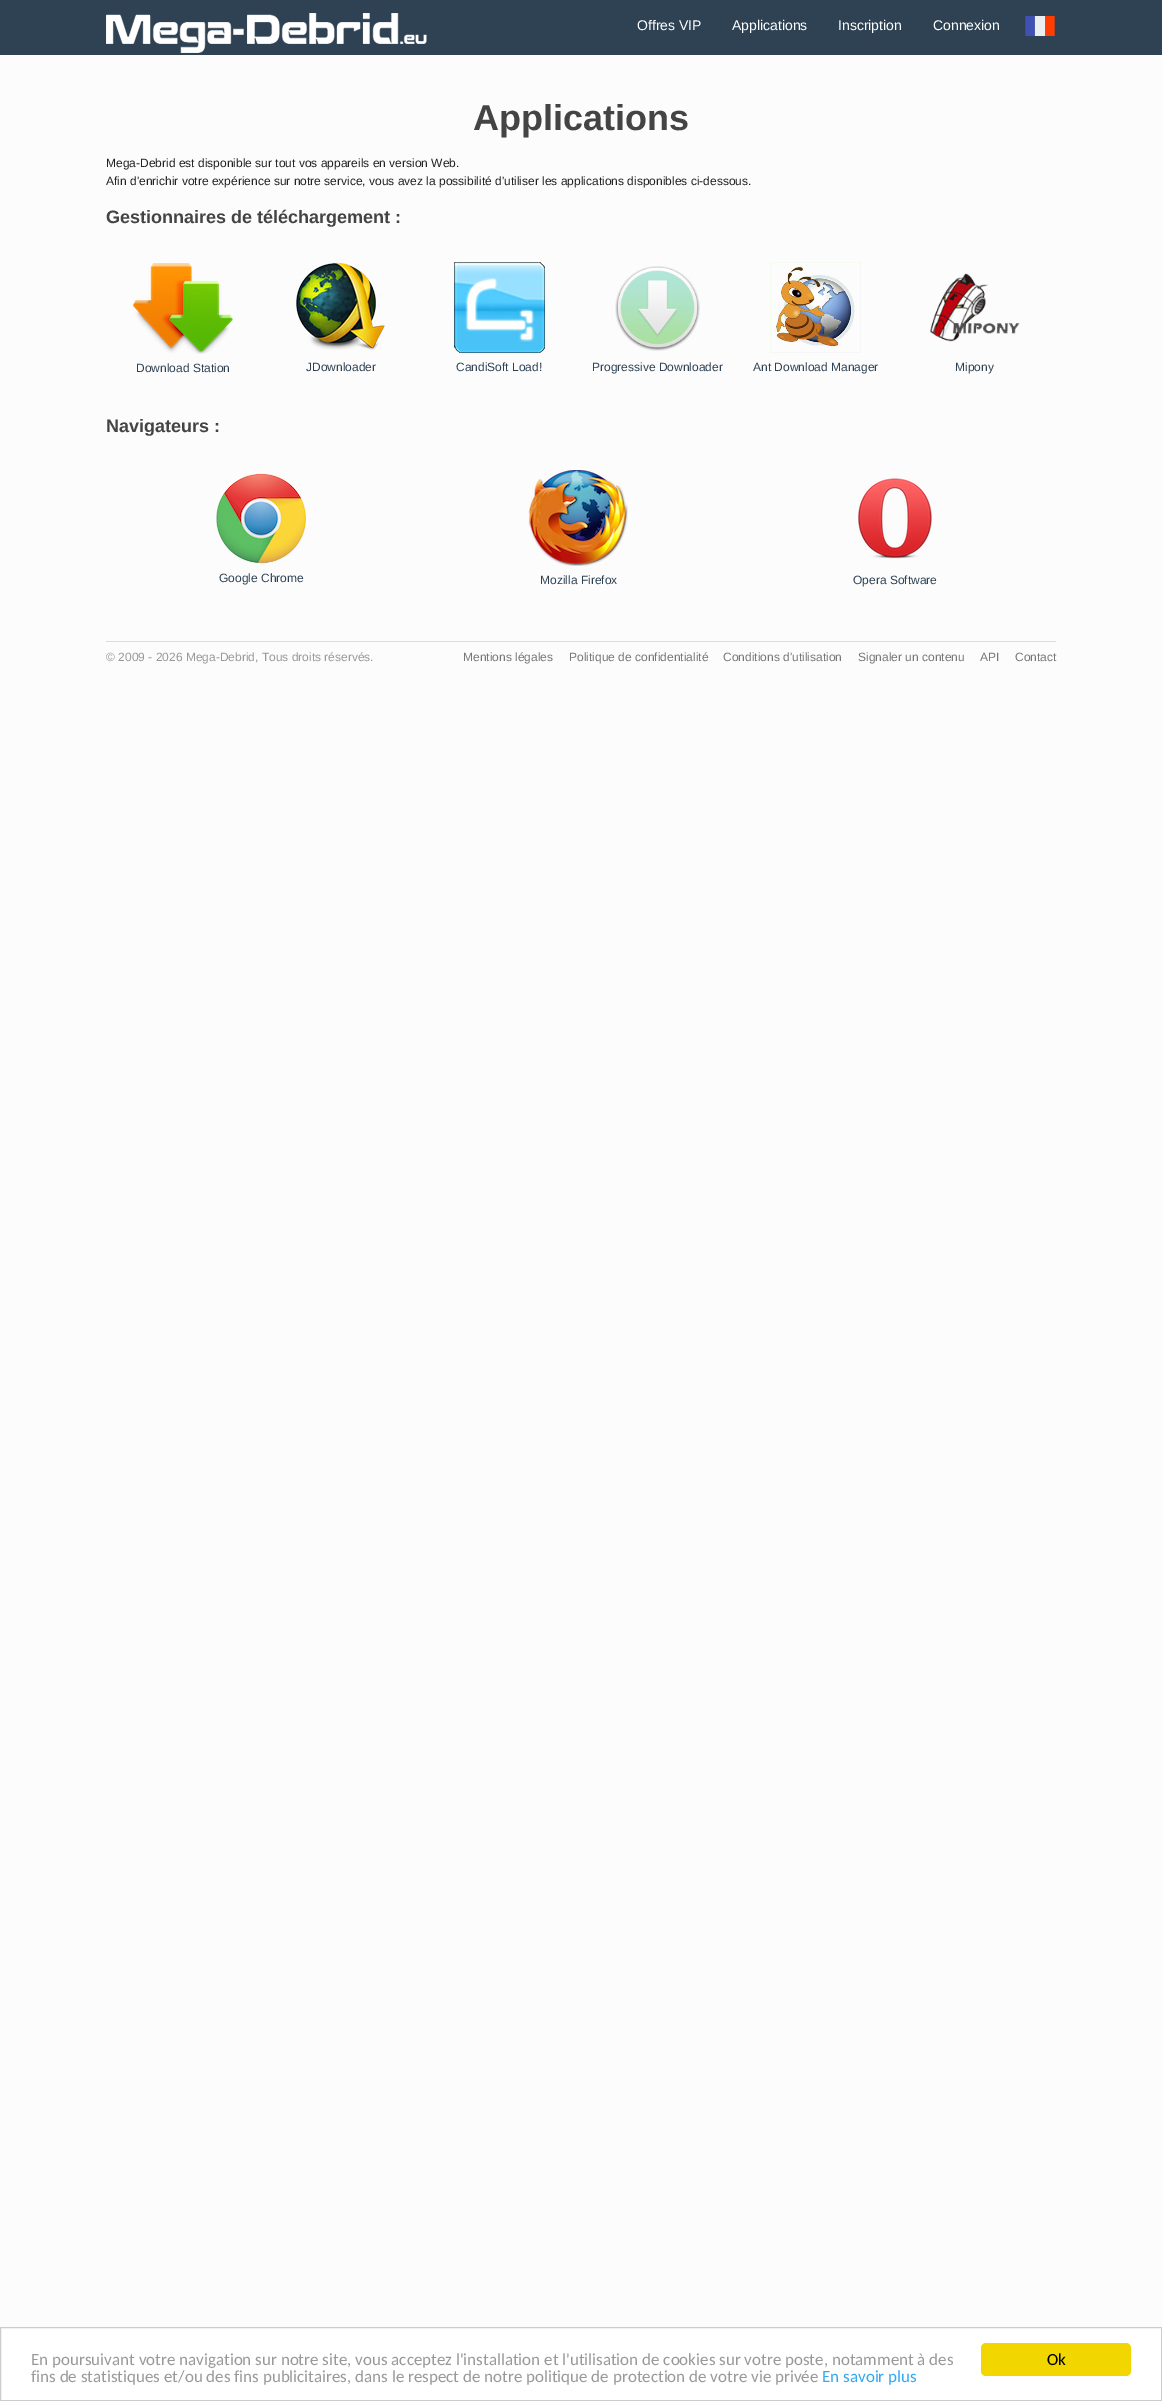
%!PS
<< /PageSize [1162 2401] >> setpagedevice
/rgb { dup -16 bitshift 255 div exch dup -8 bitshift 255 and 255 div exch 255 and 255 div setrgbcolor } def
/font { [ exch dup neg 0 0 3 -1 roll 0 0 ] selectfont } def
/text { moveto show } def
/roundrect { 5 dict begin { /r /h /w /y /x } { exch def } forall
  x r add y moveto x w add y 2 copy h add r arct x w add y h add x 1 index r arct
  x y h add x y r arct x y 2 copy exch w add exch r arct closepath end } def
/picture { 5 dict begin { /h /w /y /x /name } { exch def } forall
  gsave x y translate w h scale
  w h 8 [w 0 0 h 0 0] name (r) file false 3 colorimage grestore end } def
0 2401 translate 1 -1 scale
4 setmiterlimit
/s1 { /LiberationSans-Regular 14 font 16#FFFFFF rgb } def
/s2 { /LiberationSans-Bold 36 font 16#444444 rgb } def
/s3 { /LiberationSans-Regular 12 font 16#222222 rgb } def
/s4 { /LiberationSans-Bold 18 font 16#444444 rgb } def
/s5 { /LiberationSans-Regular 12 font 16#2F4254 rgb } def
/s6 { /LiberationSans-Regular 12 font 16#999999 rgb } def
/s7 { /LiberationSans-Regular 12 font 16#777777 rgb } def
/s8 { /Carlito-Regular 17 font 16#999999 rgb } def
/s9 { /Carlito-Regular 17 font 16#31A8F0 rgb } def
/s10 { /Carlito-Regular 17 font 16#000000 rgb } def
16#FCFCFC rgb
0 0 1162 2401 rectfill
16#2F4254 rgb
0 0 1162 55 rectfill
(pic1.raw) 106 13 321 40 picture
s1
(Offres VIP) 637 30 text
(Applications) 732 30 text
(Inscription) 838 30 text
(Connexion) 933 30 text
(pic2.raw) 1025 16 30 20 picture
s2
(Applications) 473 130 text
s3
(Mega-Debrid est disponible sur tout vos appareils en version Web.) 106 167 text
(Afin d'enrichir votre expérience sur notre service, vous avez la possibilité d'utiliser les applications disponibles ci-dessous.) 106 185 text
s4
(Gestionnaires de téléchargement :) 106 223 text
(pic3.raw) 133 263 100 91 picture
s5
(Download Station) 136 372 text
(pic4.raw) 296 262 89 88 picture
(JDownloader) 306 371 text
(pic5.raw) 454 262 91 91 picture
(CandiSoft Load!) 456 371 text
(pic6.raw) 615 266 85 85 picture
(Progressive Downloader) 592 371 text
(pic7.raw) 770 262 91 91 picture
(Ant Download Manager) 753 371 text
(pic8.raw) 930 273 90 69 picture
(Mipony) 955 371 text
s4
(Navigateurs :) 106 432 text
(pic9.raw) 216 473 90 91 picture
s5
(Google Chrome) 219 582 text
(pic10.raw) 528 470 100 96 picture
(Mozilla Firefox) 540 584 text
(pic11.raw) 858 478 74 81 picture
(Opera Software) 853 584 text
16#DDDDDD rgb
106 641 950 1 rectfill
s6
(© 2009 - 2026 Mega-Debrid, Tous droits réservés.) 106 661 text
s7
(Mentions légales) 463 661 text
(Politique de confidentialité) 569 661 text
(Conditions d'utilisation) 723 661 text
(Signaler un contenu) 858 661 text
(API) 980 661 text
(Contact) 1015 661 text
16#FFFFFF rgb
0.5 2327.5 moveto 1161.5 2327.5 lineto 1161.5 2400.5 lineto 0.5 2400.5 lineto closepath gsave fill grestore
16#CCCCCC rgb
stroke
s8
(En poursuivant votre navigation sur notre site, vous acceptez l'installation et l'utilisation de cookies sur votre poste, notamment à des) 31 2365 text
(fins de statistiques et/ou des fins publicitaires, dans le respect de notre politique de protection de votre vie privée) 31 2382 text
s9
(En savoir plus) 822 2382 text
16#F1D600 rgb
981 2343 150 33 5 roundrect fill
s10
(Ok) 1047 2365 text
showpage
